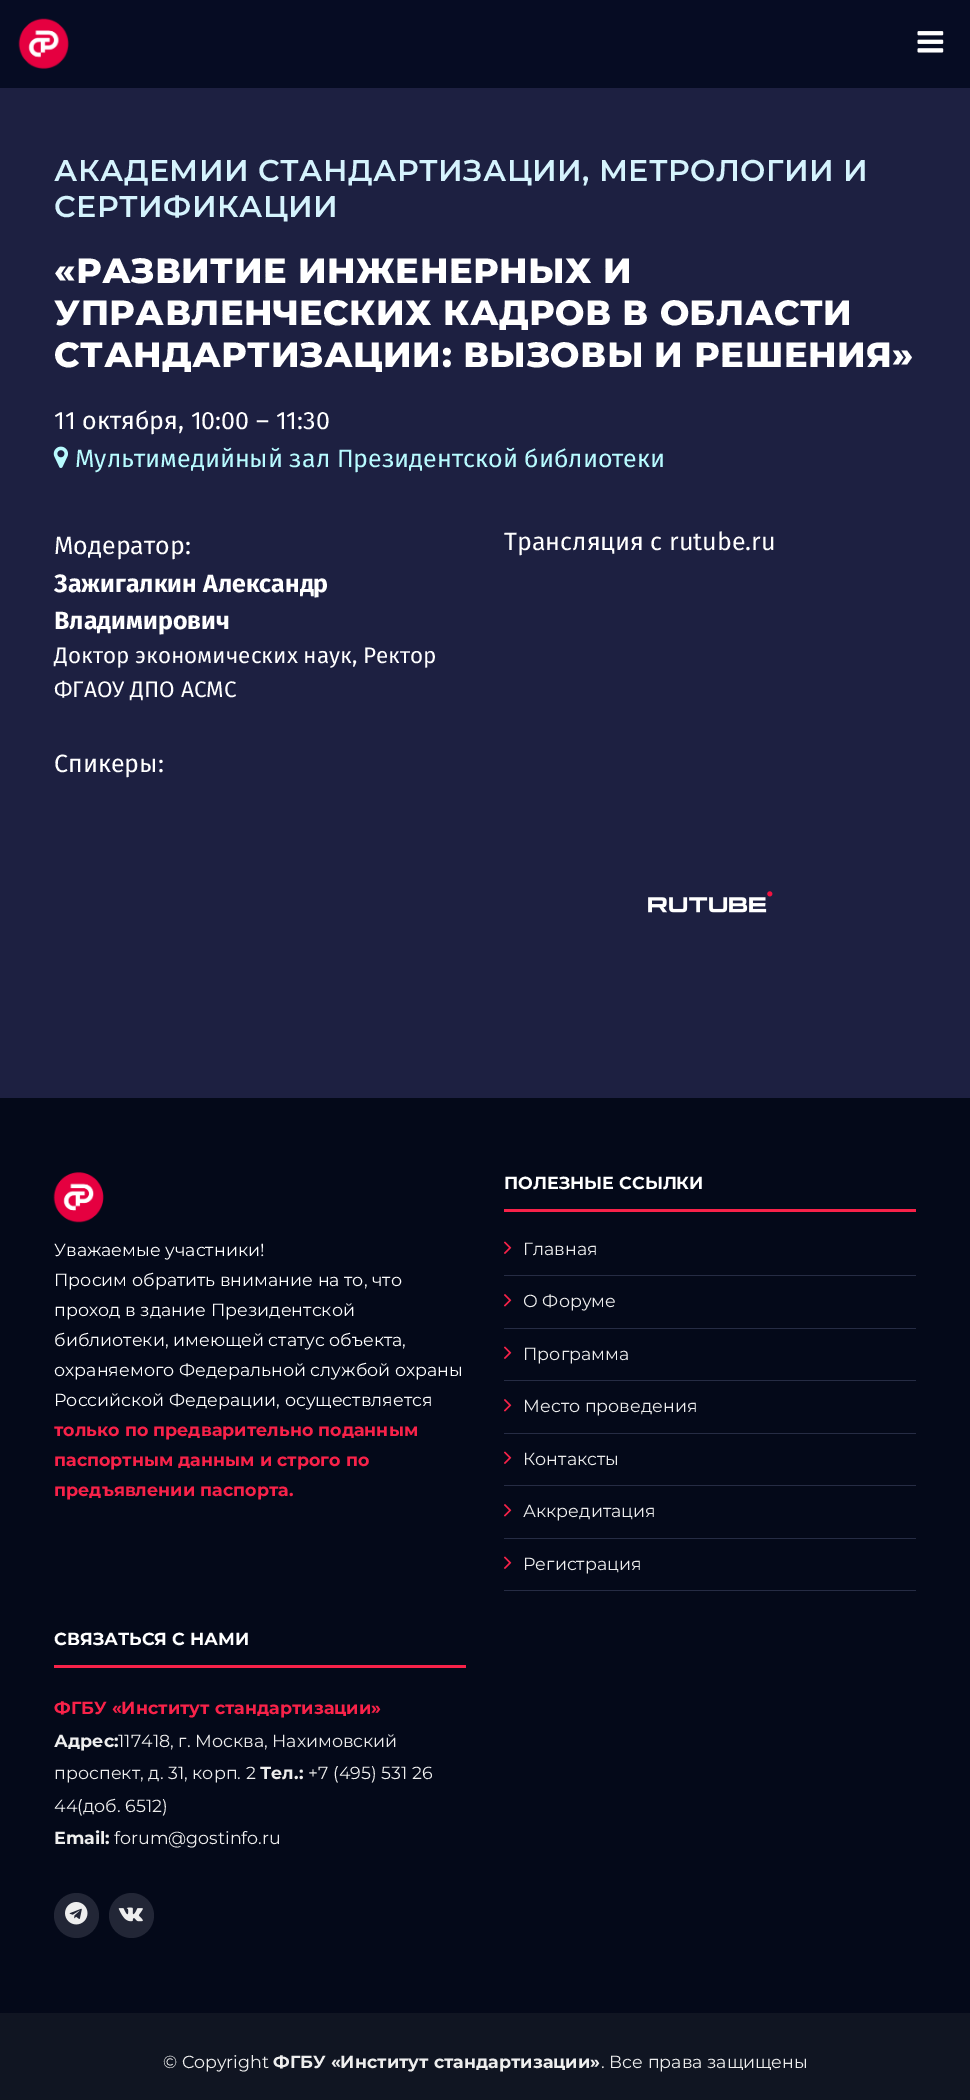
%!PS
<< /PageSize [970 2100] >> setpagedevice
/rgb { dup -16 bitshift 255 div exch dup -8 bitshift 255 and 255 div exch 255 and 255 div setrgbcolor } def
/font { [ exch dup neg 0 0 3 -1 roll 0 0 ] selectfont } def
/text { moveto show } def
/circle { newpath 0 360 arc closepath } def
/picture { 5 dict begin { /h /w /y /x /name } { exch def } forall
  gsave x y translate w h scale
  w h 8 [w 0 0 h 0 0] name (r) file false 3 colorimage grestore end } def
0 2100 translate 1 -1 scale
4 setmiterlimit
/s1 { /FiraSans-Regular 25 font 16#FFFFFF rgb } def
/s2 { /FiraSans-Regular 25 font 16#B8FBFF rgb } def
/s3 { /FiraSans-Bold 25 font 16#FFFFFF rgb } def
/s4 { /FiraSans-Regular 22.5 font 16#FFFFFF rgb } def
/s5 { /Montserrat-Regular 17.5 font 16#FFFFFF rgb } def
/s6 { /Montserrat-Bold 17.5 font 16#F82249 rgb } def
/s7 { /Montserrat-Bold 17.5 font 16#FFFFFF rgb } def
/s8 { /Montserrat-Regular 17.5 font 16#EEEEEE rgb } def
/s9 { /Montserrat-Bold 17.5 font 16#EEEEEE rgb } def
16#1D2041 rgb
0 0 970 2100 rectfill
16#060C23 rgb
0 0 970 88 rectfill
(pic1.raw) 18 18 51 51 picture
(pic2.raw) 917 31 27 22 picture
/Montserrat-SemiBold 30 font
16#D5F3FD rgb
54 181 moveto 0.5 0 (АКАДЕМИИ СТАНДАРТИЗАЦИИ, МЕТРОЛОГИИ И) ashow
54 217 moveto 0.5 0 (СЕРТИФИКАЦИИ) ashow
/Montserrat-ExtraBold 35 font
16#FFFFFF rgb
54 283 moveto 0.5 0 («РАЗВИТИЕ ИНЖЕНЕРНЫХ И) ashow
54 325 moveto 0.5 0 (УПРАВЛЕНЧЕСКИХ КАДРОВ В ОБЛАСТИ) ashow
54 367 moveto 0.5 0 (СТАНДАРТИЗАЦИИ: ВЫЗОВЫ И РЕШЕНИЯ») ashow
s1
(11 октября, 10:00 – 11:30) 54 429 text
(pic3.raw) 53 446 15 22 picture
s2
(Мультимедийный зал Президентской библиотеки) 75 467 text
s1
(Модератор:) 54 554 text
s3
(Зажигалкин Александр) 54 592 text
(Владимирович) 54 629 text
s4
(Доктор экономических наук, Ректор) 54 663 text
(ФГАОУ ДПО АСМС) 54 697 text
s1
(Спикеры:) 54 772 text
(Трансляция c rutube.ru) 504 550 text
(pic4.raw) 648 891 125 22 picture
16#101522 rgb
0 2013 970 87 rectfill
16#040919 rgb
0 1098 970 915 rectfill
(pic5.raw) 53 1172 51 51 picture
s5
(Уважаемые участники!) 54 1256 text
(Просим обратить внимание на то, что) 54 1286 text
(проход в здание Президентской) 54 1316 text
(библиотеки, имеющей статус объекта,) 54 1346 text
(охраняемого Федеральной службой охраны) 54 1376 text
(Российской Федерации, осуществляется) 54 1406 text
s6
(только по предварительно поданным) 54 1436 text
(паспортным данным и строго по) 54 1466 text
(предъявлении паспорта.) 54 1496 text
504 1209 412 3 rectfill
s7
(ПОЛЕЗНЫЕ ССЫЛКИ) 504 1189 text
16#262C44 rgb
504 1275 412 1 rectfill
(pic6.raw) 504 1241 8 13 picture
s8
(Главная) 523 1255 text
16#262C44 rgb
504 1328 412 1 rectfill
(pic7.raw) 504 1294 8 13 picture
s8
(О Форуме) 523 1307 text
16#262C44 rgb
504 1380 412 1 rectfill
(pic6.raw) 504 1346 8 13 picture
s8
(Программа) 523 1360 text
16#262C44 rgb
504 1433 412 1 rectfill
(pic7.raw) 504 1399 8 13 picture
s8
(Место проведения) 523 1412 text
16#262C44 rgb
504 1485 412 1 rectfill
(pic6.raw) 504 1451 8 13 picture
s8
(Контаксты) 523 1465 text
16#262C44 rgb
504 1538 412 1 rectfill
(pic7.raw) 504 1504 8 13 picture
s8
(Аккредитация) 523 1517 text
16#262C44 rgb
504 1590 412 1 rectfill
(pic6.raw) 504 1556 8 13 picture
s8
(Регистрация) 523 1570 text
16#F82249 rgb
54 1665 412 3 rectfill
s7
(СВЯЗАТЬСЯ С НАМИ) 54 1645 text
s6
(ФГБУ «Институт стандартизации») 54 1714 text
s9
(Адрес:) 54 1747 text
s8
(117418, г. Москва, Нахимовский) 118 1747 text
(проспект, д. 31, корп. 2) 54 1779 text
s9
(Тел.:) 260 1779 text
s8
(+7 \(495\) 531 26) 308 1779 text
(44\(доб. 6512\)) 54 1812 text
s9
(Email:) 54 1844 text
s8
(forum@gostinfo.ru) 114 1844 text
16#222636 rgb
76.5 1915.5 22.5 circle fill
(pic8.raw) 65 1902 23 23 picture
131.5 1915.5 22.5 circle fill
(pic9.raw) 118 1907 25 15 picture
s8
(© Copyright) 163 2068 text
s9
(ФГБУ «Институт стандартизации») 273 2068 text
s8
(. Все права защищены) 601 2068 text
showpage
